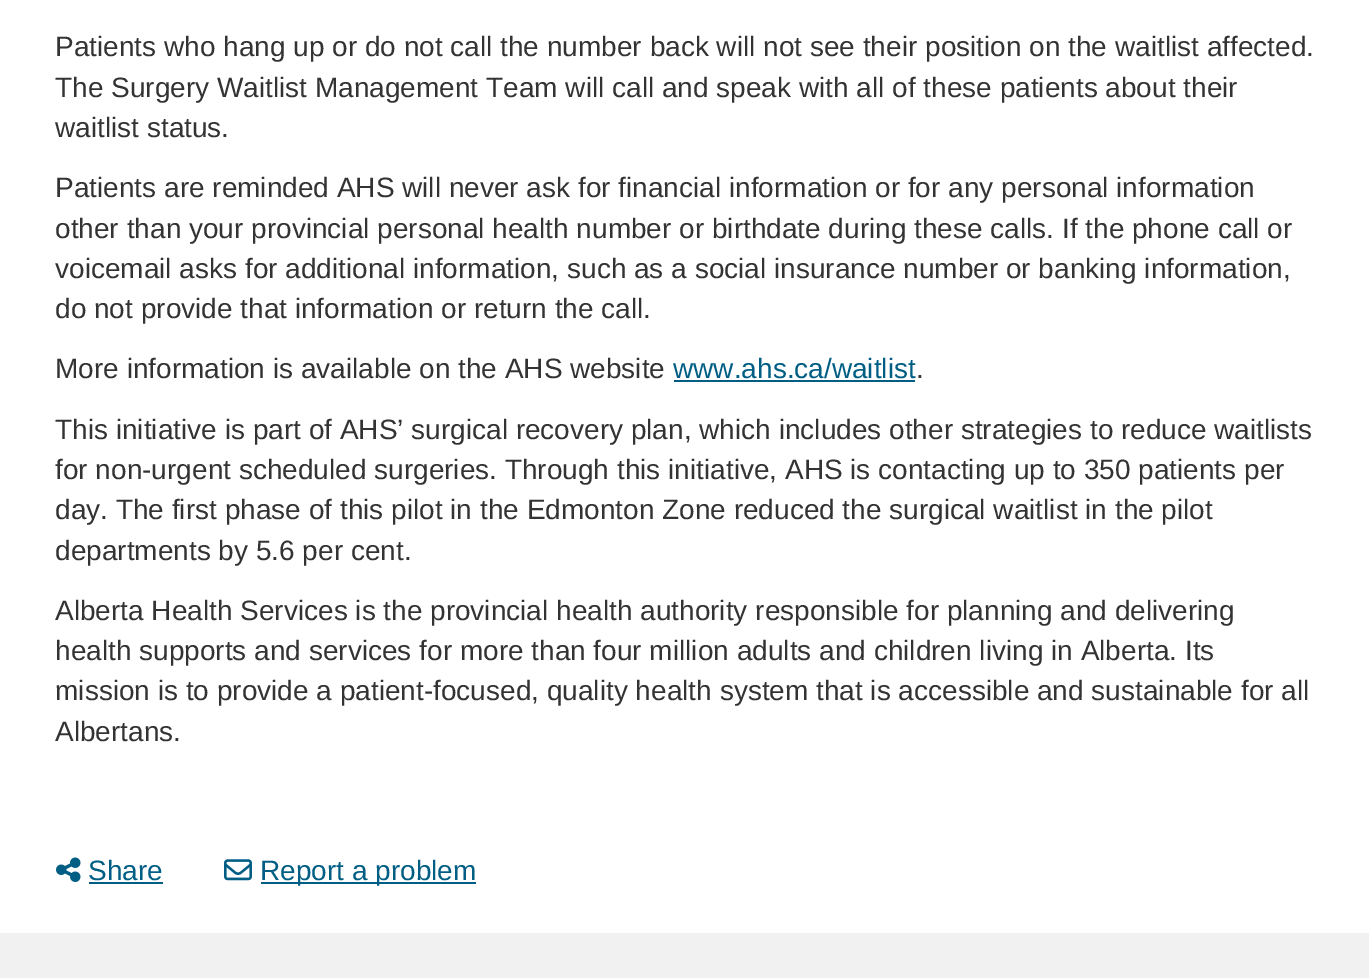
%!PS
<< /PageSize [1369 978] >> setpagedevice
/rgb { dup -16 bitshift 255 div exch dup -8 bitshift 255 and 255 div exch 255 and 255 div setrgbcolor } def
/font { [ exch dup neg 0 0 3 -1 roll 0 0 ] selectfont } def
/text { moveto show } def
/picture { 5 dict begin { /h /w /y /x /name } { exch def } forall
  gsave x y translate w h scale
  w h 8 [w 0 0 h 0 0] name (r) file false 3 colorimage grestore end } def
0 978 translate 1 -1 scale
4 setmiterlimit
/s1 { /LiberationSans-Regular 28 font 16#333333 rgb } def
/s2 { /LiberationSans-Regular 28 font 16#005E85 rgb } def
16#FFFFFF rgb
0 0 1369 978 rectfill
s1
(Patients who hang up or do not call the number back will not see their position on the waitlist affected.) 55 56 text
(The Surgery Waitlist Management Team will call and speak with all of these patients about their) 55 97 text
(waitlist status.) 55 137 text
(Patients are reminded AHS will never ask for financial information or for any personal information) 55 197 text
(other than your provincial personal health number or birthdate during these calls. If the phone call or) 55 238 text
(voicemail asks for additional information, such as a social insurance number or banking information,) 55 278 text
(do not provide that information or return the call.) 55 318 text
(More information is available on the AHS website) 55 378 text
s2
(www.ahs.ca/waitlist) 673 378 text
674 380 241 2 rectfill
s1
(.) 916 378 text
(This initiative is part of AHS’ surgical recovery plan, which includes other strategies to reduce waitlists) 55 439 text
(for non-urgent scheduled surgeries. Through this initiative, AHS is contacting up to 350 patients per) 55 479 text
(day. The first phase of this pilot in the Edmonton Zone reduced the surgical waitlist in the pilot) 55 519 text
(departments by 5.6 per cent.) 55 560 text
(Alberta Health Services is the provincial health authority responsible for planning and delivering) 55 620 text
(health supports and services for more than four million adults and children living in Alberta. Its) 55 660 text
(mission is to provide a patient-focused, quality health system that is accessible and sustainable for all) 55 700 text
(Albertans.) 55 741 text
(pic1.raw) 56 857 25 25 picture
s2
(Share) 88 880 text
89 882 74 2 rectfill
(pic2.raw) 224 859 28 22 picture
261 882 215 2 rectfill
(Report a problem) 260 880 text
16#F1F1F1 rgb
0 933 1369 45 rectfill
showpage
